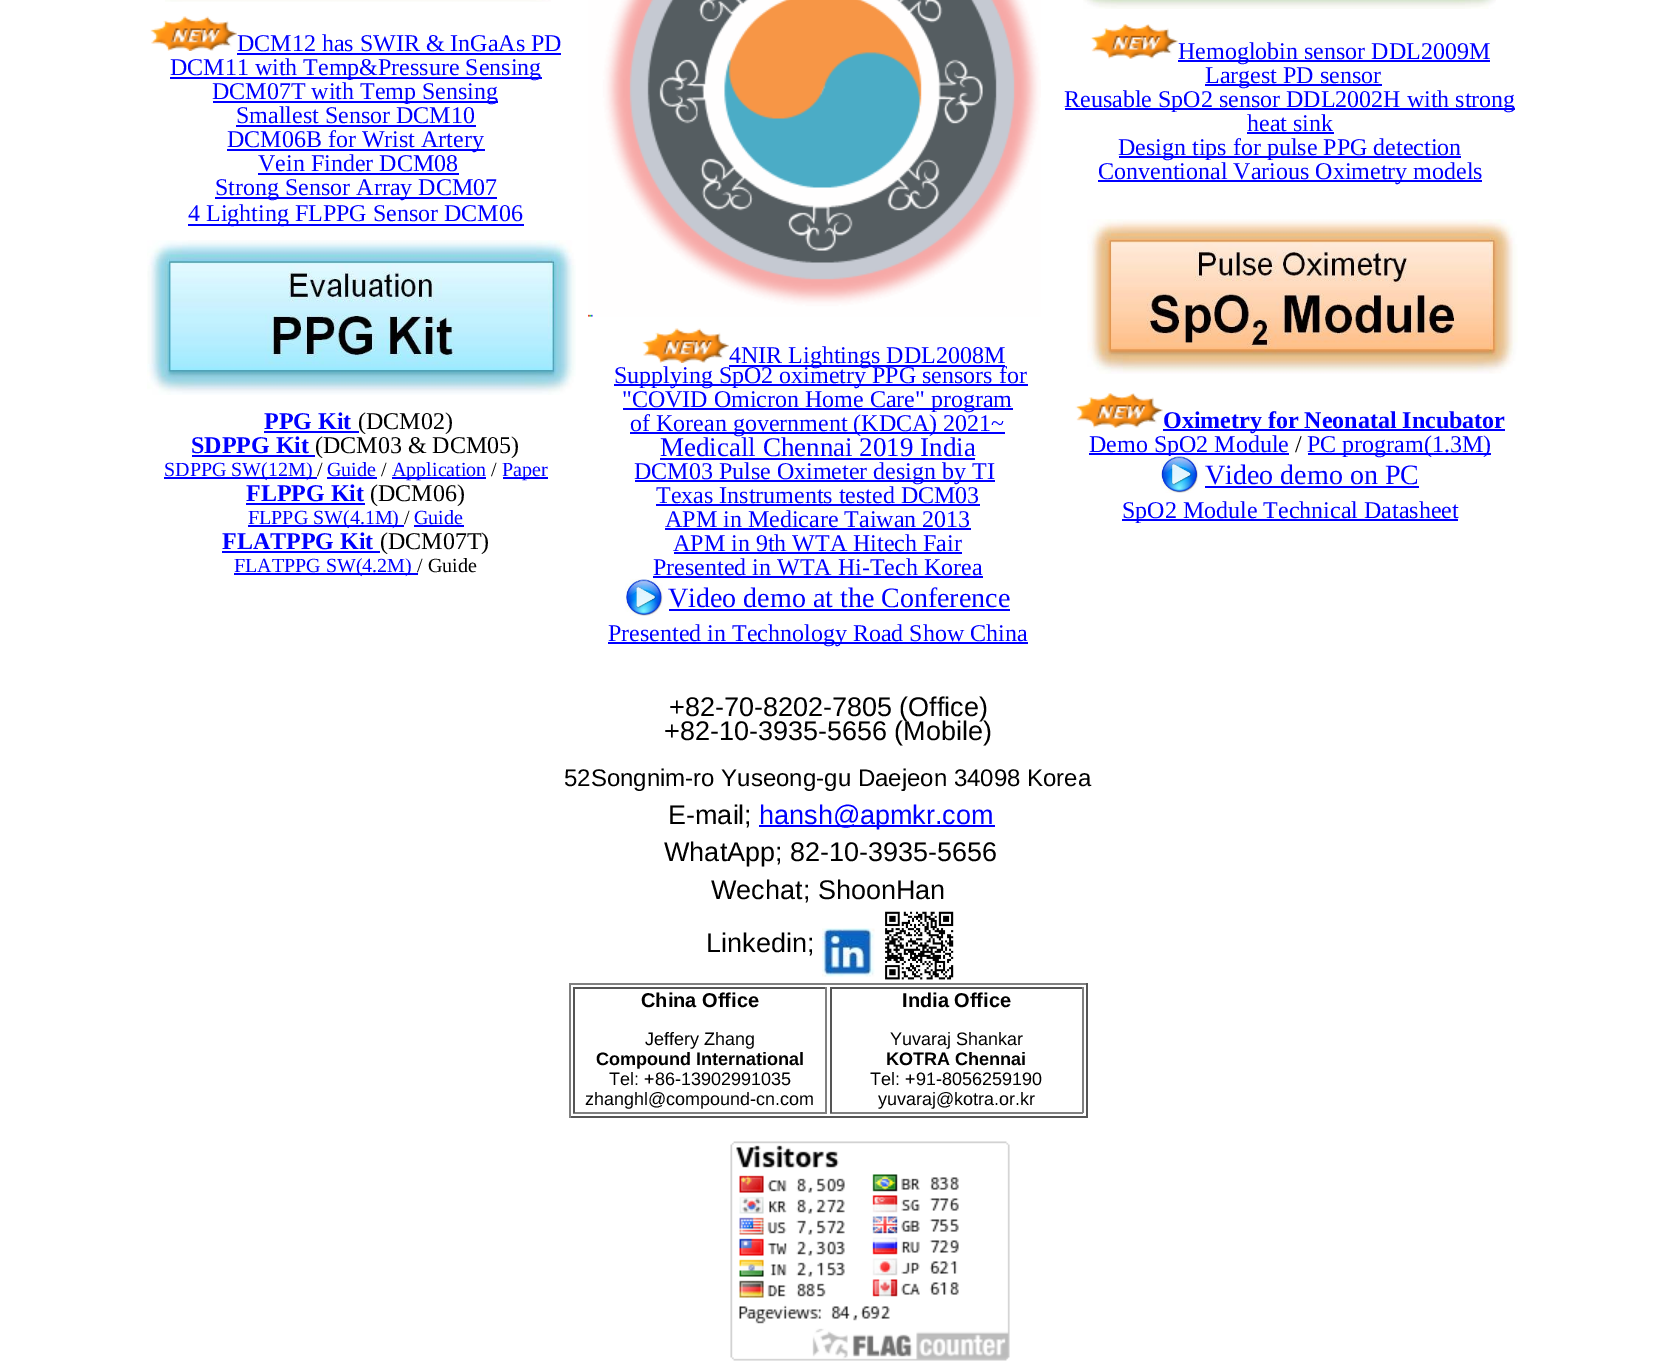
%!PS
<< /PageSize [1655 1371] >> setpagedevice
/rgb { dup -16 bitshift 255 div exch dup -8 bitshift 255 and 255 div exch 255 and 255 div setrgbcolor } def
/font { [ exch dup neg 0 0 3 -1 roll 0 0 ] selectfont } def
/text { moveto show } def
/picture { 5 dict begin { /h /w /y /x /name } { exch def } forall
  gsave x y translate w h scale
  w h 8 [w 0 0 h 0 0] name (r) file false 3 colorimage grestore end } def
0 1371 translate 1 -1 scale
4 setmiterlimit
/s1 { /LiberationSerif-Regular 24 font 16#0000FF rgb } def
/s2 { /LiberationSerif-Bold 24 font 16#0000FF rgb } def
/s3 { /LiberationSerif-Regular 24 font 16#000000 rgb } def
/s4 { /LiberationSerif-Regular 20 font 16#0000FF rgb } def
/s5 { /LiberationSerif-Regular 20 font 16#000000 rgb } def
/s6 { /LiberationSerif-Regular 27 font 16#0000FF rgb } def
/s7 { /LiberationSerif-Regular 28 font 16#0000FF rgb } def
/s8 { /LiberationSans-Regular 27 font 16#000000 rgb } def
/s9 { /LiberationSans-Regular 24 font 16#000000 rgb } def
/s10 { /LiberationSans-Regular 27 font 16#0000FF rgb } def
/s11 { /LiberationSans-Bold 20 font 16#000000 rgb } def
/s12 { /LiberationSans-Regular 18 font 16#000000 rgb } def
/s13 { /LiberationSans-Bold 18 font 16#000000 rgb } def
16#FFFFFF rgb
0 0 1655 1371 rectfill
(pic1.raw) 165 0 386 2 picture
(pic2.raw) 150 16 87 35 picture
s1
(DCM12 has SWIR & InGaAs PD) 237 51 text
237 53 324 2 rectfill
170 77 372 2 rectfill
(DCM11 with Temp&Pressure Sensing) 170 75 text
213 101 285 2 rectfill
(DCM07T with Temp Sensing) 212 99 text
(Smallest Sensor DCM10) 236 123 text
236 125 240 2 rectfill
227 149 258 2 rectfill
(DCM06B for Wrist Artery) 227 147 text
(Vein Finder DCM08) 258 171 text
258 173 201 2 rectfill
215 197 282 2 rectfill
(Strong Sensor Array DCM07) 215 195 text
188 224 336 2 rectfill
(4 Lighting FLPPG Sensor DCM06) 188 221 text
(pic3.raw) 147 240 429 155 picture
s2
(PPG Kit) 264 429 text
264 431 95 2 rectfill
s3
(\(DCM02\)) 358 429 text
s2
(SDPPG Kit) 191 453 text
192 455 123 2 rectfill
s3
(\(DCM03 & DCM05\)) 315 453 text
16#0000FF rgb
164 477 153 2 rectfill
s4
(SDPPG SW\(12M\)) 164 476 text
s5
(/) 317 476 text
s4
(Guide) 327 476 text
327 477 50 2 rectfill
s5
(/) 381 476 text
16#0000FF rgb
392 477 94 2 rectfill
(Application) 392 476 text
s5
(/) 491 476 text
16#0000FF rgb
503 477 45 2 rectfill
(Paper) 502 476 text
s2
(FLPPG Kit) 246 501 text
246 503 119 2 rectfill
s3
(\(DCM06\)) 370 501 text
16#0000FF rgb
248 525 156 2 rectfill
s4
(FLPPG SW\(4.1M\)) 248 524 text
s5
(/) 404 524 text
s4
(Guide) 414 524 text
414 525 50 2 rectfill
s2
(FLATPPG Kit) 222 549 text
222 551 158 2 rectfill
s3
(\(DCM07T\)) 380 549 text
16#0000FF rgb
234 573 184 2 rectfill
s4
(FLATPPG SW\(4.2M\)) 234 572 text
s5
(/ Guide) 417 572 text
(pic4.raw) 588 0 453 317 picture
(pic2.raw) 642 328 87 35 picture
16#0000FF rgb
729 365 276 2 rectfill
s1
(4NIR Lightings DDL2008M) 729 363 text
614 384 414 2 rectfill
(Supplying SpO2 oximetry PPG sensors for) 614 383 text
623 408 390 2 rectfill
("COVID Omicron Home Care" program) 622 407 text
630 432 375 2 rectfill
(of Korean government \(KDCA\) 2021~) 630 431 text
s6
(Medicall Chennai 2019 India) 660 456 text
660 458 315 2 rectfill
635 480 360 2 rectfill
s1
(DCM03 Pulse Oximeter design by TI) 634 479 text
(Texas Instruments tested DCM03) 656 503 text
656 504 324 2 rectfill
(APM in Medicare Taiwan 2013) 665 527 text
665 528 306 2 rectfill
(APM in 9th WTA Hitech Fair) 673 551 text
674 552 288 2 rectfill
(Presented in WTA Hi-Tech Korea) 653 575 text
653 576 330 2 rectfill
(pic5.raw) 625 579 38 37 picture
s7
(Video demo at the Conference) 668 607 text
669 609 341 2 rectfill
608 642 420 2 rectfill
s1
(Presented in Technology Road Show China) 608 641 text
(pic6.raw) 1083 0 413 9 picture
(pic7.raw) 1090 24 88 35 picture
1178 60 312 2 rectfill
(Hemoglobin sensor DDL2009M) 1178 59 text
1205 84 177 2 rectfill
(Largest PD sensor) 1205 83 text
1065 108 450 2 rectfill
(Reusable SpO2 sensor DDL2002H with strong) 1064 107 text
(heat sink) 1247 131 text
1247 132 87 2 rectfill
1119 156 342 2 rectfill
(Design tips for pulse PPG detection) 1118 155 text
1098 180 384 2 rectfill
(Conventional Various Oximetry models) 1098 179 text
(pic8.raw) 1087 219 431 155 picture
(pic7.raw) 1075 393 88 35 picture
1163 429 342 2 rectfill
s2
(Oximetry for Neonatal Incubator) 1163 428 text
1089 453 200 2 rectfill
s1
(Demo SpO2 Module) 1089 452 text
s3
(/) 1295 452 text
16#0000FF rgb
1308 453 183 2 rectfill
(PC program\(1.3M\)) 1307 452 text
(pic9.raw) 1161 456 37 37 picture
s7
(Video demo on PC) 1205 484 text
1205 486 214 2 rectfill
1122 519 336 2 rectfill
s1
(SpO2 Module Technical Datasheet) 1122 518 text
s8
(+82-70-8202-7805 \(Office\)) 669 716 text
(+82-10-3935-5656 \(Mobile\)) 664 740 text
s9
(52Songnim-ro Yuseong-gu Daejeon 34098 Korea) 564 786 text
s8
(E-mail;) 668 824 text
16#0000FF rgb
759 825 236 2 rectfill
(hansh@apmkr.com) 759 824 text
s8
(WhatApp; 82-10-3935-5656) 664 861 text
(Wechat; ShoonHan) 711 899 text
(Linkedin;) 706 952 text
(pic10.raw) 822 928 53 49 picture
(pic11.raw) 885 911 69 69 picture
16#808080 rgb
569 983 519 2 rectfill
16#555555 rgb
1086 983 2 135 rectfill
569 1116 519 2 rectfill
16#808080 rgb
569 983 2 135 rectfill
16#555555 rgb
573 987 254 2 rectfill
16#808080 rgb
825 987 2 126 rectfill
573 1112 254 2 rectfill
16#555555 rgb
573 987 2 126 rectfill
s11
(China Office) 641 1007 text
s12
(Jeffery Zhang) 645 1045 text
s13
(Compound International) 596 1065 text
s12
(Tel: +86-13902991035) 609 1085 text
(zhanghl@compound-cn.com) 585 1105 text
16#555555 rgb
830 987 253 2 rectfill
16#808080 rgb
1082 987 2 126 rectfill
830 1112 253 2 rectfill
16#555555 rgb
830 987 2 126 rectfill
s11
(India Office) 902 1007 text
s12
(Yuvaraj Shankar) 890 1045 text
s13
(KOTRA Chennai) 886 1065 text
s12
(Tel: +91-8056259190) 870 1085 text
(yuvaraj@kotra.or.kr) 878 1105 text
(pic12.raw) 730 1141 280 220 picture
showpage
